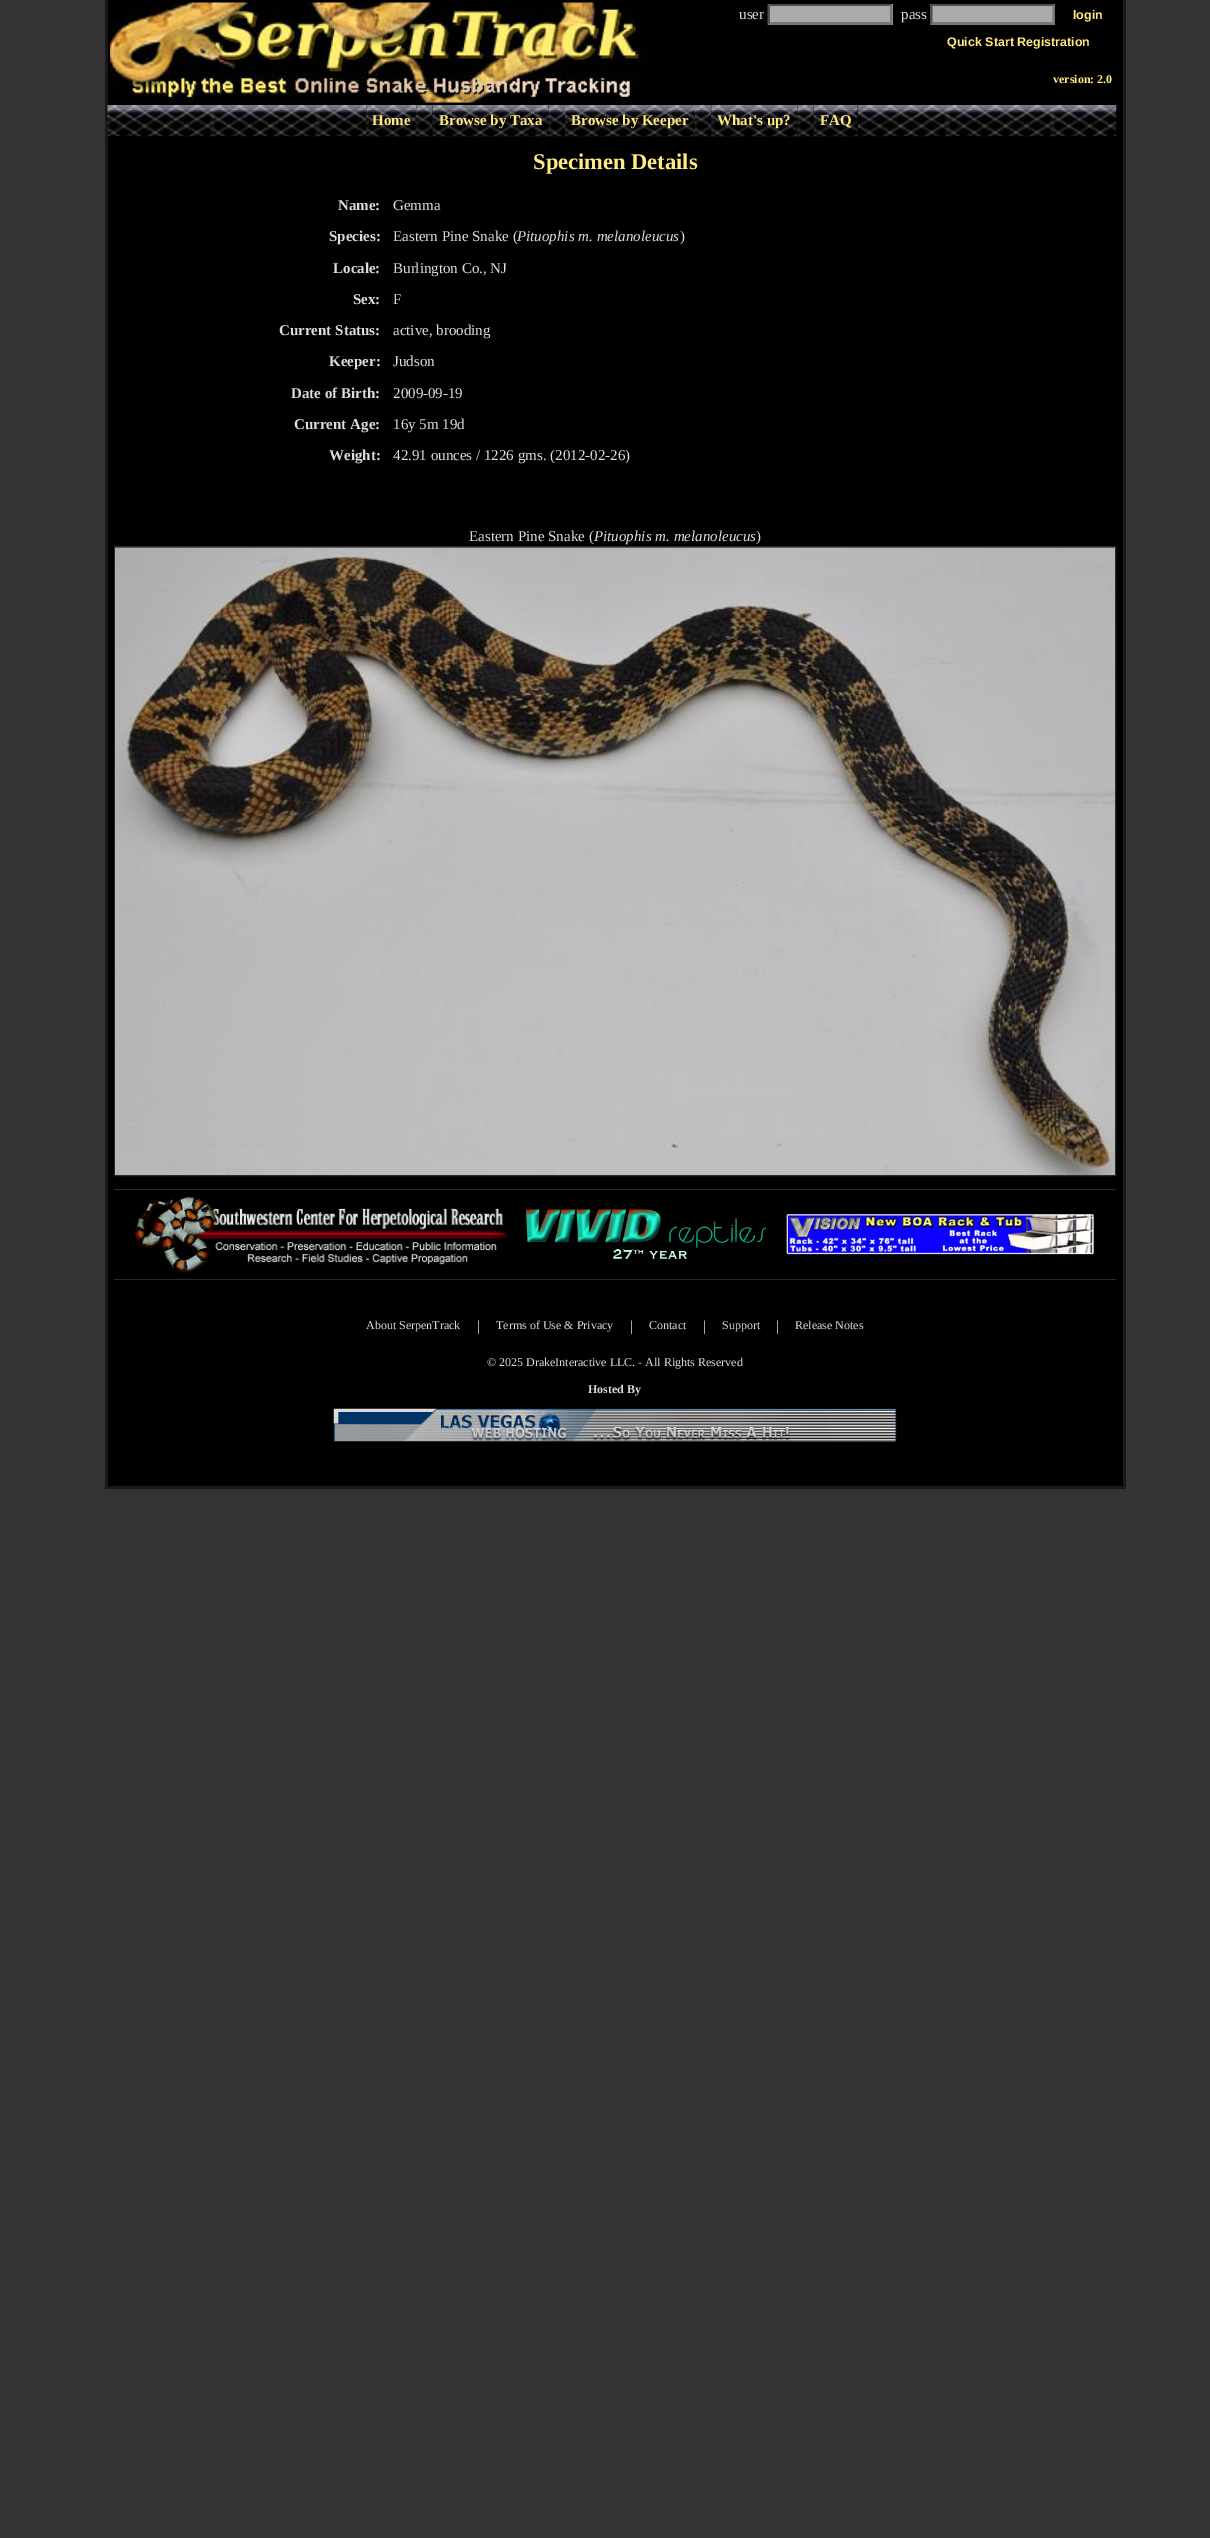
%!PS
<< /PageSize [1210 2538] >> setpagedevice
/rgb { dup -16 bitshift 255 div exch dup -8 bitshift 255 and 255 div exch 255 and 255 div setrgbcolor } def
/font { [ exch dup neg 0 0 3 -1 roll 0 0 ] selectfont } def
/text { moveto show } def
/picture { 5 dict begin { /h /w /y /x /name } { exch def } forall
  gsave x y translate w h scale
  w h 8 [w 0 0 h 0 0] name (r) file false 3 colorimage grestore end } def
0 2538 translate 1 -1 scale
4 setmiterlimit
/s1 { /LiberationSerif-Regular 15 font 16#DDDDDD rgb } def
/s2 { /LiberationSans-Bold 12.5 font 16#FFEB80 rgb } def
/s3 { /LiberationSerif-Bold 12 font 16#FFEB80 rgb } def
/s4 { /LiberationSerif-Bold 15 font 16#FFEB80 rgb } def
/s5 { /LiberationSerif-Bold 22.5 font 16#FFEB80 rgb } def
/s6 { /LiberationSerif-Bold 15 font 16#DDDDDD rgb } def
/s7 { /LiberationSerif-Italic 15 font 16#DDDDDD rgb } def
/s8 { /LiberationSerif-Regular 12 font 16#DDDDDD rgb } def
/s9 { /LiberationSerif-Bold 12 font 16#DDDDDD rgb } def
16#333333 rgb
0 0 1210 2538 rectfill
16#000000 rgb
108 0 1015 1486 rectfill
16#191919 rgb
1123 0 3 1489 rectfill
105 1486 1020 3 rectfill
105 0 3 1489 rectfill
(pic1.raw) 110 2 537 101 picture
s1
(user) 739 19 text
16#AAAAAA rgb
768 4 125 21 rectfill
16#4F4F4F rgb
768 4 moveto 892 4 lineto 890 6 lineto 770 6 lineto closepath fill
16#767676 rgb
892.5 4 moveto 892.5 25 lineto 890 22.5 lineto 890 6 lineto closepath fill
892 25 moveto 768 25 lineto 770 22 lineto 890 22 lineto closepath fill
16#4F4F4F rgb
767.5 25 moveto 767.5 4 lineto 770 6 lineto 770 22.5 lineto closepath fill
s1
(pass) 901 19 text
16#AAAAAA rgb
930 4 125 21 rectfill
16#4F4F4F rgb
930 4 moveto 1055 4 lineto 1052 6 lineto 932 6 lineto closepath fill
16#767676 rgb
1055 4 moveto 1055 25 lineto 1052.5 22.5 lineto 1052.5 6 lineto closepath fill
1055 25 moveto 930 25 lineto 932 22 lineto 1052 22 lineto closepath fill
16#4F4F4F rgb
930 25 moveto 930 4 lineto 932.5 6 lineto 932.5 22.5 lineto closepath fill
s2
(login) 1073 19 text
(Quick Start Registration) 947 46 text
s3
(version: 2.0) 1053 83 text
(pic2.raw) 107 105 1010 32 picture
(pic3.raw) 366 105 492 32 picture
(pic4.raw) 366 105 51 32 picture
s4
(Home) 372 125 text
(pic5.raw) 416 105 17 32 picture
(pic6.raw) 432 105 117 32 picture
(Browse by Taxa) 439 125 text
(pic7.raw) 548 105 17 32 picture
(pic8.raw) 565 105 130 32 picture
(Browse by Keeper) 571 125 text
(pic9.raw) 695 105 17 32 picture
(pic10.raw) 711 105 87 32 picture
(What's up?) 717 125 text
(pic11.raw) 797 105 17 32 picture
(pic12.raw) 813 105 45 32 picture
(FAQ) 820 125 text
s5
(Specimen Details) 533 169 text
s6
(Name:) 338 210 text
s1
(Gemma) 393 210 text
s6
(Species:) 329 241 text
s1
(Eastern Pine Snake \() 393 241 text
s7
(Pituophis m. melanoleucus) 517 241 text
s1
(\)) 680 241 text
s6
(Locale:) 333 273 text
s1
(Burlington Co., NJ) 393 273 text
s6
(Sex:) 353 304 text
s1
(F) 393 304 text
s6
(Current Status:) 279 335 text
s1
(active, brooding) 393 335 text
s6
(Keeper:) 329 366 text
s1
(Judson) 393 366 text
s6
(Date of Birth:) 291 398 text
s1
(2009-09-19) 393 398 text
s6
(Current Age:) 294 429 text
s1
(16y 5m 19d) 393 429 text
s6
(Weight:) 329 460 text
s1
(42.91 ounces / 1226 gms. \(2012-02-26\)) 393 460 text
(Eastern Pine Snake \() 469 541 text
s7
(Pituophis m. melanoleucus) 594 541 text
s1
(\)) 756 541 text
16#2A2A2A rgb
114.5 546.5 1001 629 rectstroke
(pic13.raw) 115 547 1000 628 picture
114 1189 1002 1 rectfill
114 1279 1002 1 rectfill
(pic14.raw) 134 1196 374 77 picture
(pic15.raw) 525 1209 241 50 picture
(pic16.raw) 784 1212 311 45 picture
s8
(About SerpenTrack) 366 1329 text
s1
(|) 477 1331 text
s8
(Terms of Use & Privacy) 496 1329 text
s1
(|) 630 1331 text
s8
(Contact) 649 1329 text
s1
(|) 703 1331 text
s8
(Support) 722 1329 text
s1
(|) 776 1331 text
s8
(Release Notes) 795 1329 text
(© 2025 DrakeInteractive LLC. - All Rights Reserved) 487 1366 text
s9
(Hosted By) 588 1393 text
(pic17.raw) 333 1408 564 34 picture
showpage
